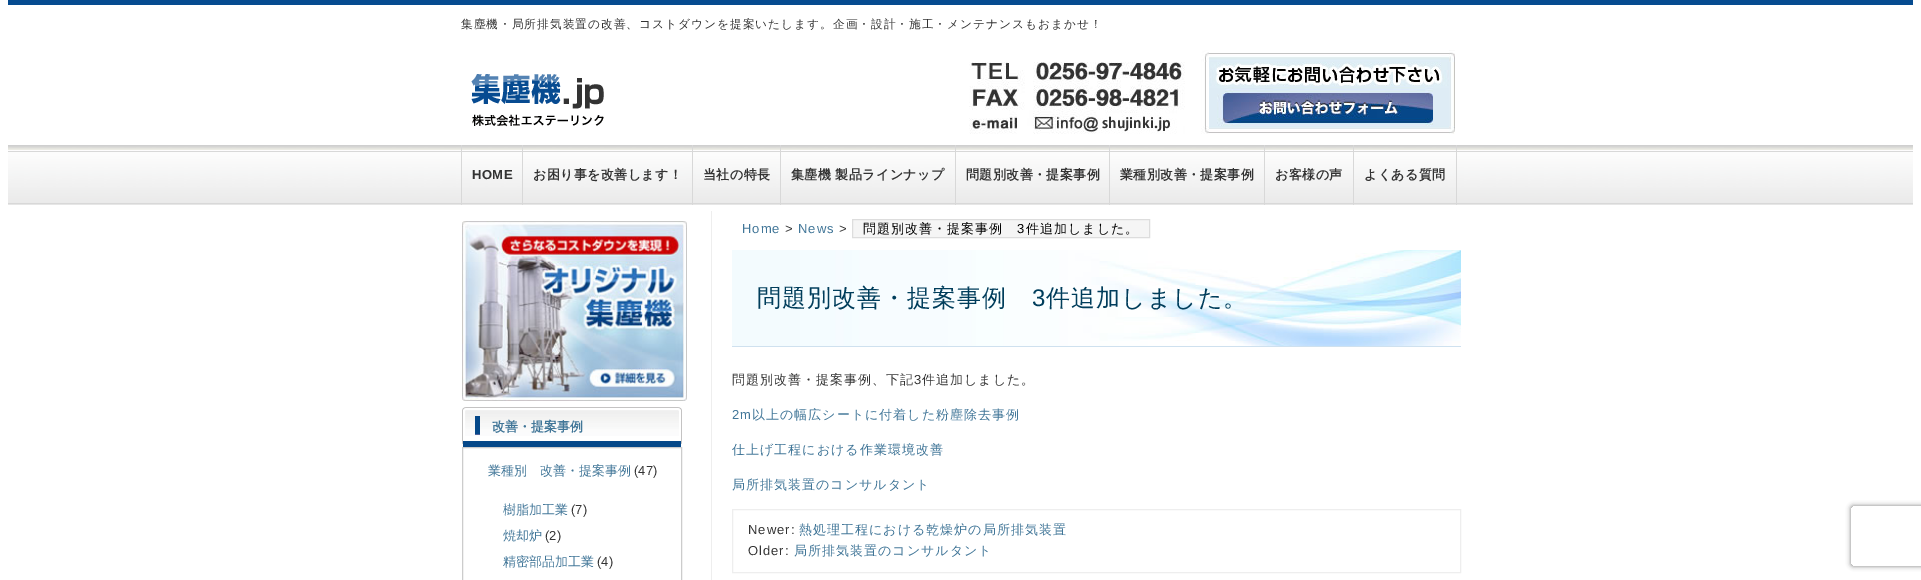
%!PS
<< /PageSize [1921 580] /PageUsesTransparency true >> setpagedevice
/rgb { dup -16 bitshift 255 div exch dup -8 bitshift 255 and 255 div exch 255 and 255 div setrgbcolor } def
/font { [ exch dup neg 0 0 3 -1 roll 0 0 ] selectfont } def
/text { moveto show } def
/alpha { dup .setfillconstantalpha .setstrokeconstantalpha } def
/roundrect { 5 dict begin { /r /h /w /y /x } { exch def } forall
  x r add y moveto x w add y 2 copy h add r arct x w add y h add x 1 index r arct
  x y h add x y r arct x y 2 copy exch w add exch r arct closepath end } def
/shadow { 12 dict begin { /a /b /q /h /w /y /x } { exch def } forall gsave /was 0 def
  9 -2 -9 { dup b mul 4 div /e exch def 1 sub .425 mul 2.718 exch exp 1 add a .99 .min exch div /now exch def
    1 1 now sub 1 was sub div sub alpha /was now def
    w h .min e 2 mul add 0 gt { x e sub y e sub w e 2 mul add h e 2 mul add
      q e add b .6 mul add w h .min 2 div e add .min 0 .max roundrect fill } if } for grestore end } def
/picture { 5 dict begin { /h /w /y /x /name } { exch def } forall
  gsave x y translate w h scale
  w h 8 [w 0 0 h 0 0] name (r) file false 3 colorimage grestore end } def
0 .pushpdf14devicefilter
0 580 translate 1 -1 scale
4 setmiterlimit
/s1 { /WenQuanYiZenHei-Bold 13 font 16#417698 rgb } def
/s2 { /WenQuanYiZenHei-Medium 13 font 16#417698 rgb } def
/s3 { /LiberationSans-Regular 13 font 16#333333 rgb } def
16#FFFFFF rgb
0 0 1921 580 rectfill
16#064B90 rgb
8 0 1905 5 rectfill
/WenQuanYiZenHei-Medium 11.7 font
16#333333 rgb
461 28 moveto 1 0 (集塵機・局所排気装置の改善、コストダウンを提案いたします。企画・設計・施工・メンテナンスもおまかせ！) ashow
(pic1.raw) 471 74 133 53 picture
(pic2.raw) 969 50 486 84 picture
(pic3.raw) 8 145 1905 60 picture
16#D8D8D8 rgb
522 145 1 60 rectfill
461 145 1 60 rectfill
/LiberationSans-Bold 13 font
16#333333 rgb
472 179 moveto 0.4 0 (HOME) ashow
16#D8D8D8 rgb
692 145 1 60 rectfill
/WenQuanYiZenHei-Bold 13 font
16#333333 rgb
533 179 moveto 0.4 0 (お困り事を改善します！) ashow
16#D8D8D8 rgb
780 145 1 60 rectfill
16#333333 rgb
703 179 moveto 0.4 0 (当社の特長) ashow
16#D8D8D8 rgb
955 145 1 60 rectfill
16#333333 rgb
791 179 moveto 0.4 0 (集塵機 製品ラインナップ) ashow
16#D8D8D8 rgb
1109 145 1 60 rectfill
16#333333 rgb
966 179 moveto 0.4 0 (問題別改善・提案事例) ashow
16#D8D8D8 rgb
1264 145 1 60 rectfill
16#333333 rgb
1120 179 moveto 0.4 0 (業種別改善・提案事例) ashow
16#D8D8D8 rgb
1353 145 1 60 rectfill
16#333333 rgb
1275 179 moveto 0.4 0 (お客様の声) ashow
16#D8D8D8 rgb
1456 145 1 60 rectfill
16#333333 rgb
1364 179 moveto 0.4 0 (よくある質問) ashow
(pic4.raw) 462 221 225 180 picture
(pic5.raw) 462 407 220 40 picture
s1
(改善・提案事例) 492 431 text
16#CCCCCC rgb
462.5 447.5 219 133 rectstroke
s2
(業種別　改善・提案事例) 488 475 text
s3
(\(47\)) 634 475 text
s2
(樹脂加工業) 503 514 text
s3
(\(7\)) 571 514 text
s2
(焼却炉) 503 540 text
s3
(\(2\)) 545 540 text
s2
(精密部品加工業) 503 566 text
s3
(\(4\)) 597 566 text
16#EEEEEE rgb
711 211 1 369 rectfill
16#417698 rgb
742 233 moveto 1 0 (Home) ashow
16#333333 rgb
785 233 moveto 1 0 (>) ashow
16#417698 rgb
798 233 moveto 1 0 (News) ashow
16#333333 rgb
839 233 moveto 1 0 (>) ashow
16#F5F5F5 rgb
852.5 219.5 moveto 1149.5 219.5 lineto 1149.5 237.5 lineto 852.5 237.5 lineto closepath gsave fill grestore
16#DDDDDD rgb
stroke
/WenQuanYiZenHei-Medium 13 font
16#000000 rgb
863 233 moveto 1 0 (問題別改善・提案事例) ashow
/LiberationSans-Regular 13 font
1017 233 moveto 1 0 (3) ashow
/WenQuanYiZenHei-Medium 13 font
1026 233 moveto 1 0 (件追加しました。) ashow
(pic6.raw) 732 250 729 96 picture
16#CFE1EF rgb
732 346 729 1 rectfill
/WenQuanYiZenHei-Medium 24 font
16#003D5B rgb
757 306 moveto 1 0 (問題別改善・提案事例) ashow
/LiberationSans-Regular 24 font
1032 306 moveto 1 0 (3) ashow
/WenQuanYiZenHei-Medium 24 font
1046 306 moveto 1 0 (件追加しました。) ashow
/WenQuanYiZenHei-Medium 13 font
16#333333 rgb
732 384 moveto 1 0 (問題別改善・提案事例、下記) ashow
/LiberationSans-Regular 13 font
914 384 moveto 1 0 (3) ashow
/WenQuanYiZenHei-Medium 13 font
922 384 moveto 1 0 (件追加しました。) ashow
/LiberationSans-Regular 13 font
16#417698 rgb
732 419 moveto 1 0 (2m) ashow
/WenQuanYiZenHei-Medium 13 font
752 419 moveto 1 0 (以上の幅広シートに付着した粉塵除去事例) ashow
732 454 moveto 1 0 (仕上げ工程における作業環境改善) ashow
732 489 moveto 1 0 (局所排気装置のコンサルタント) ashow
16#EEEEEE rgb
732.5 509.5 728 63 rectstroke
/LiberationSans-Regular 13 font
16#333333 rgb
748 534 moveto 1 0 (Newer:) ashow
/WenQuanYiZenHei-Medium 13 font
16#417698 rgb
799 534 moveto 1 0 (熱処理工程における乾燥炉の局所排気装置) ashow
/LiberationSans-Regular 13 font
16#333333 rgb
748 555 moveto 1 0 (Older:) ashow
/WenQuanYiZenHei-Medium 13 font
16#417698 rgb
794 555 moveto 1 0 (局所排気装置のコンサルタント) ashow
gsave
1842 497 moveto 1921 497 lineto 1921 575 lineto 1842 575 lineto closepath 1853 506 moveto 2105 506 lineto 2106 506 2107 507 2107 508 curveto 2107 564 lineto 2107 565 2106 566 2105 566 curveto 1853 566 lineto 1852 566 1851 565 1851 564 curveto 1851 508 lineto 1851 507 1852 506 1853 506 curveto closepath eoclip newpath
16#808080 rgb
1851 506 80 60 2 2.5 1 shadow
grestore
.poppdf14devicefilter showpage
